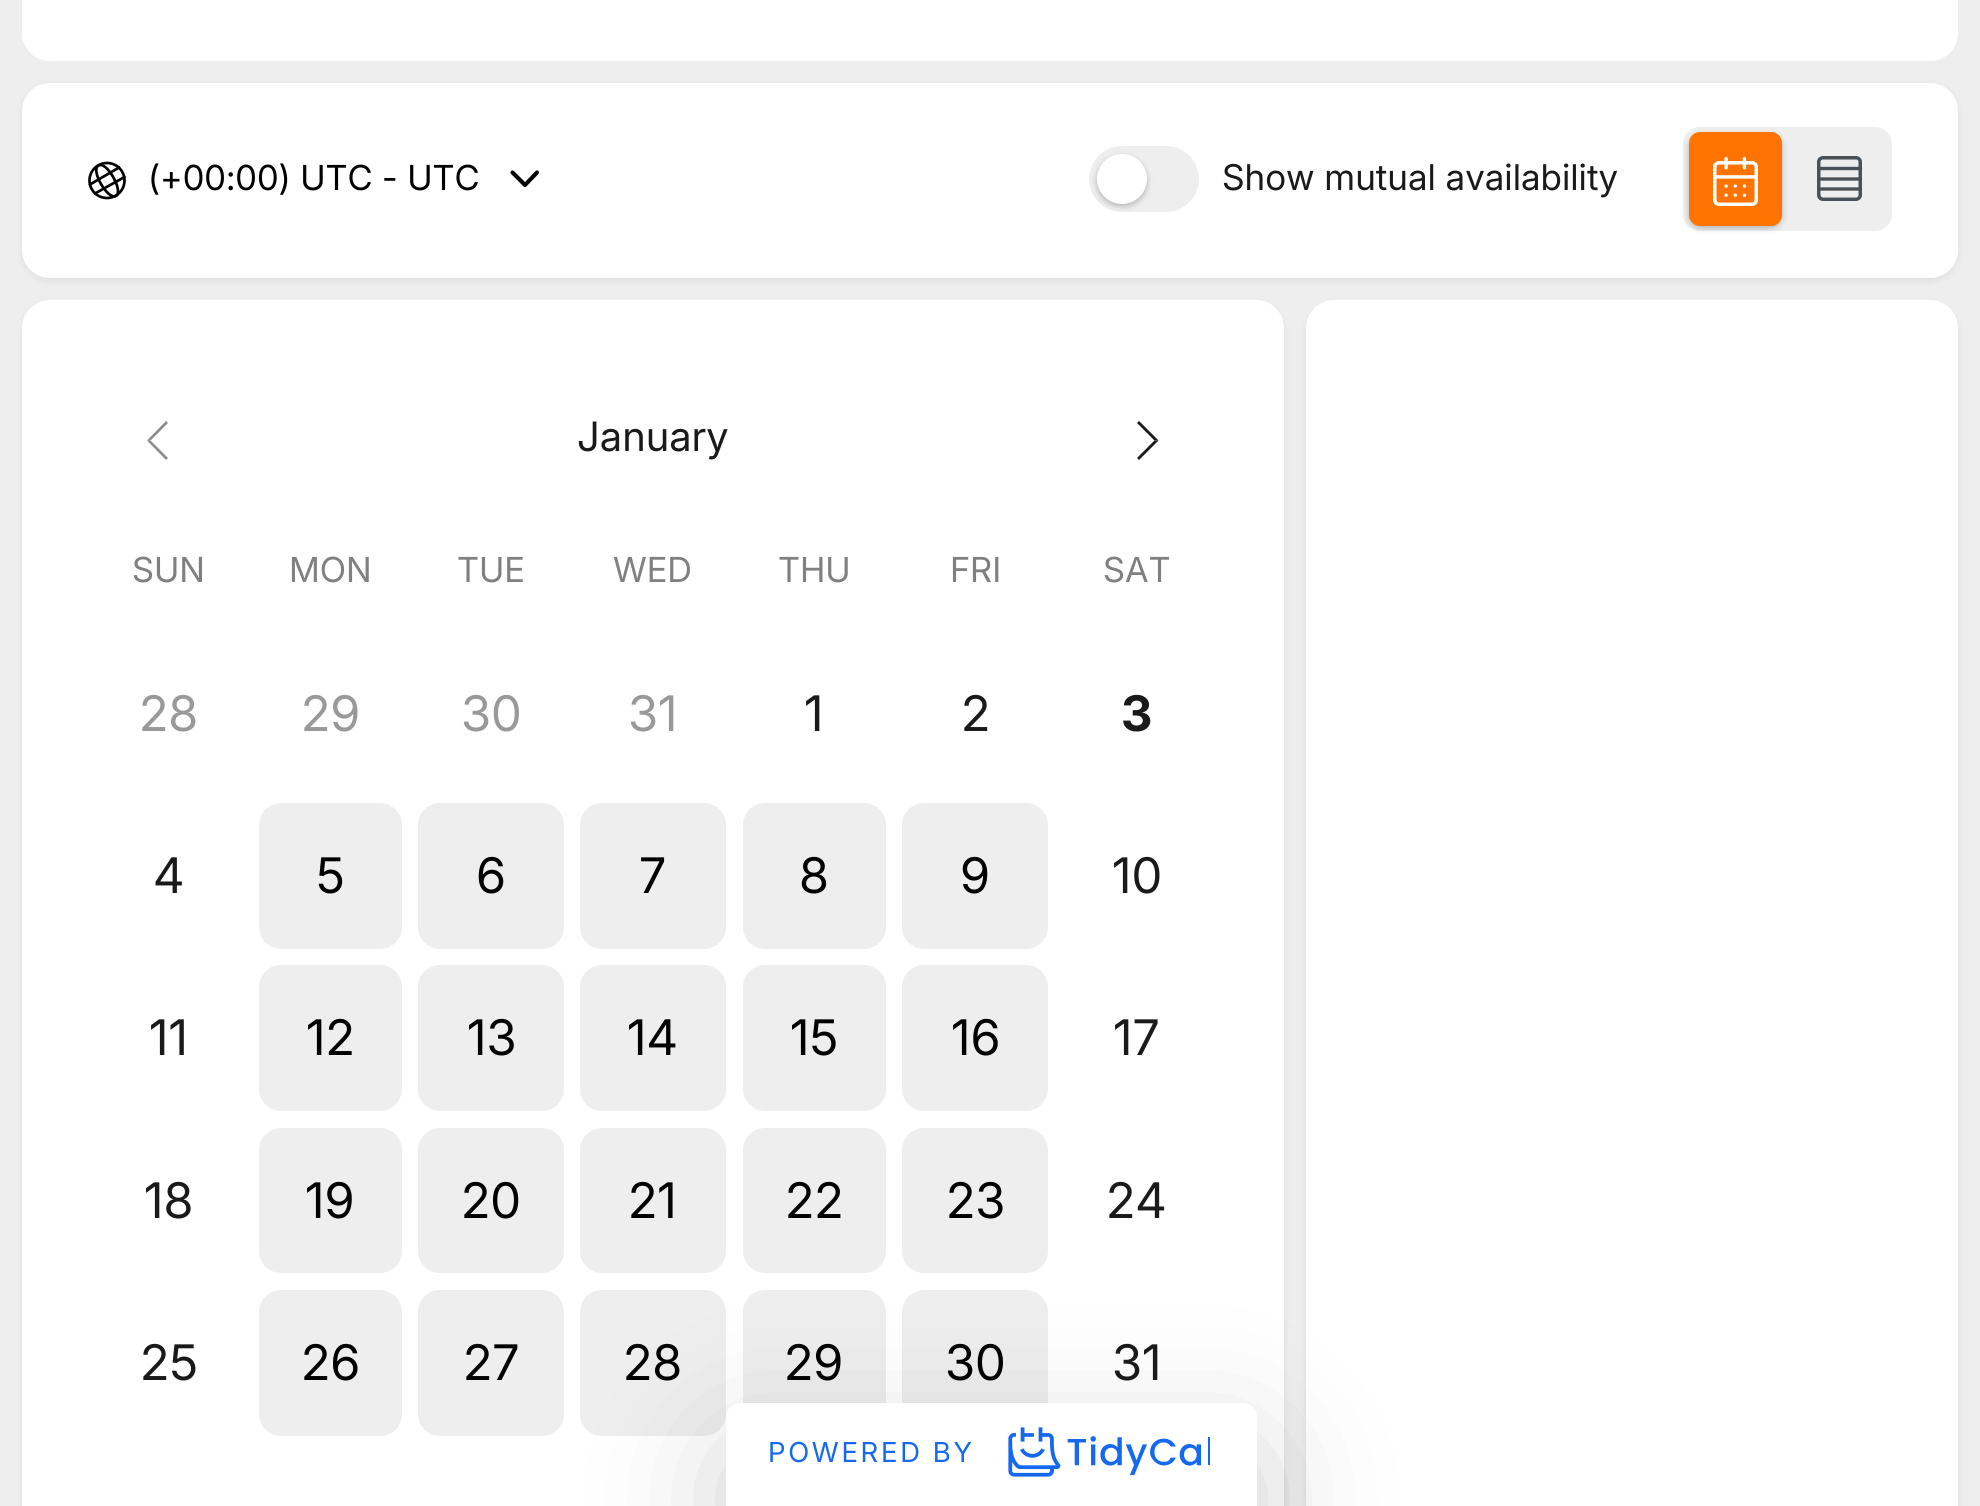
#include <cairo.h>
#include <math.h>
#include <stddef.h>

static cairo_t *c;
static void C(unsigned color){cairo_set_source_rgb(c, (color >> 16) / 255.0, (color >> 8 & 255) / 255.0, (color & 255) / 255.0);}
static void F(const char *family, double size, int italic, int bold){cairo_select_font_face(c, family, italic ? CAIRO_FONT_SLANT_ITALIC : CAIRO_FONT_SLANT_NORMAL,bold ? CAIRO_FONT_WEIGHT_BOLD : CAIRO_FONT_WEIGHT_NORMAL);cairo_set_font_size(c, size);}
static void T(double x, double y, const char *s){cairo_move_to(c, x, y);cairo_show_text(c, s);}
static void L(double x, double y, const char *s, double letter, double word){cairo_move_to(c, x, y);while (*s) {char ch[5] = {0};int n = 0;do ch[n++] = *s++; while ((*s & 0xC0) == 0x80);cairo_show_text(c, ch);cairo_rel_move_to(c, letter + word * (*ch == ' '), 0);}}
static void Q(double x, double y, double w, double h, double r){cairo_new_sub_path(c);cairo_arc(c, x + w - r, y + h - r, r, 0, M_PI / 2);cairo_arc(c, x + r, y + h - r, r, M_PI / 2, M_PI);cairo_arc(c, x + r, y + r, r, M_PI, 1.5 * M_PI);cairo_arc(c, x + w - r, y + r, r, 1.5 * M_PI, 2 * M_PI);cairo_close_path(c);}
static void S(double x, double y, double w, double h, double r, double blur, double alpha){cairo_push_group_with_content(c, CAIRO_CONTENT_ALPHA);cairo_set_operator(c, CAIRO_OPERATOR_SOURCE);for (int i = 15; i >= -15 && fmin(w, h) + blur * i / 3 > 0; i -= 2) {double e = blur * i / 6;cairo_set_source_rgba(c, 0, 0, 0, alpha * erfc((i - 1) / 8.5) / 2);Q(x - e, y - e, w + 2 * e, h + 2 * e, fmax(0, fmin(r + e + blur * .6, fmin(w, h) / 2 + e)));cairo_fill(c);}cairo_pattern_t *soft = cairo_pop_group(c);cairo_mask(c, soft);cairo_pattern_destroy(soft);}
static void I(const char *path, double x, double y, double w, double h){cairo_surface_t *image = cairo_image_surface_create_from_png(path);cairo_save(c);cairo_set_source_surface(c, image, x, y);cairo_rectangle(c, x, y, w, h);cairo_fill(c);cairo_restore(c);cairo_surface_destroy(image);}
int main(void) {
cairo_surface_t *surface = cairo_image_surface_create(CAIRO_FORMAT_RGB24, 1980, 1506);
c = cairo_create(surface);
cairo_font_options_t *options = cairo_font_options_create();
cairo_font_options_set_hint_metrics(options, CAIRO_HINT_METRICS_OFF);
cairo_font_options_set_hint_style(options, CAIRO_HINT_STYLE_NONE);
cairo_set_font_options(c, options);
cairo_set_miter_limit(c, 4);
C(0xeeeeef);
cairo_paint(c);
C(0xffffff);
Q(22,-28,1936,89,28);
cairo_fill(c);
C(0x000000);
S(22,85,1936,196,28,4,.07);
C(0xffffff);
Q(22,83,1936,195,28);
cairo_fill(c);
cairo_arc(c,107,180.5,17.5,0,2 * M_PI);
C(0x000000);
cairo_set_line_width(c,2.7);
cairo_stroke(c);
cairo_new_path(c);
cairo_move_to(c,98.5,165.5);
cairo_curve_to(c,106.5,160.5,124,191.5,116,196);
cairo_curve_to(c,108,200.5,90,170,98.5,165.5);
cairo_close_path(c);
cairo_move_to(c,90,184.5);
cairo_line_to(c,119,167.5);
cairo_move_to(c,124.5,177);
cairo_line_to(c,95,193.5);
cairo_set_line_cap(c,CAIRO_LINE_CAP_ROUND);
cairo_set_line_join(c,CAIRO_LINE_JOIN_ROUND);
cairo_stroke(c);
F("Inter",34.5,0,0);
T(148,190,"(+00:00) UTC - UTC");
cairo_new_path(c);
cairo_move_to(c,512.5,172.5);
cairo_line_to(c,525,185);
cairo_line_to(c,537,172.5);
cairo_set_line_width(c,4.1);
cairo_stroke(c);
C(0xeeeeef);
Q(1089,146,110,66,33);
cairo_fill(c);
C(0x000000);
S(1097,157,50,49,24.5,3,.25);
C(0xffffff);
cairo_arc(c,1122,179,25,0,2 * M_PI);
cairo_fill(c);
F("Inter",35.5,0,0);
C(0x1a1a1a);
T(1222,190,"Show mutual availability");
C(0xeeeeef);
Q(1683,127,209,104,17);
cairo_fill(c);
C(0x000000);
S(1689,135,93,93,11,3,.25);
C(0xff7300);
Q(1689,132,93,94,11);
cairo_fill(c);
I("1.png",1712,156,46,50);
Q(1818.75,157.75,41.5,41.5,4.25);
C(0x495057);
cairo_set_line_width(c,3.5);
cairo_set_line_cap(c,CAIRO_LINE_CAP_BUTT);
cairo_set_line_join(c,CAIRO_LINE_JOIN_MITER);
cairo_stroke(c);
cairo_new_path(c);
cairo_move_to(c,1860.5,168.5);
cairo_line_to(c,1819,168.5);
cairo_move_to(c,1860.5,179);
cairo_line_to(c,1819,179);
cairo_move_to(c,1860.5,189);
cairo_line_to(c,1819,189);
cairo_set_line_width(c,3.4);
cairo_set_line_cap(c,CAIRO_LINE_CAP_ROUND);
cairo_set_line_join(c,CAIRO_LINE_JOIN_ROUND);
cairo_stroke(c);
C(0x000000);
S(22,303,1262,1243,28,4,.07);
C(0xffffff);
Q(22,300,1262,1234,28);
cairo_fill(c);
C(0x8d8d8d);
cairo_new_path(c);
cairo_move_to(c,166,460);
cairo_line_to(c,147,440.5);
cairo_line_to(c,150.5,440.5);
cairo_line_to(c,168,458);
cairo_close_path(c);
cairo_fill(c);
cairo_set_source_rgba(c,0.502,0.502,0.502,0.9);
cairo_new_path(c);
cairo_move_to(c,147,440.5);
cairo_line_to(c,166,421);
cairo_line_to(c,168,423);
cairo_line_to(c,150.5,440.5);
cairo_close_path(c);
cairo_fill(c);
F("Inter",40.5,0,0);
C(0x1a1a1a);
T(577,451,"January");
cairo_new_path(c);
cairo_move_to(c,1139,421);
cairo_line_to(c,1158.5,440.5);
cairo_line_to(c,1154.5,440.5);
cairo_line_to(c,1137,423);
cairo_close_path(c);
cairo_fill(c);
cairo_new_path(c);
cairo_move_to(c,1158.5,440.5);
cairo_line_to(c,1139,460);
cairo_line_to(c,1137,458);
cairo_line_to(c,1154.5,440.5);
cairo_close_path(c);
cairo_fill(c);
F("Inter",34.5,0,0);
C(0x808080);
T(132,582,"SUN");
T(289,582,"MON");
T(457,582,"TUE");
T(613,582,"WED");
T(778,582,"THU");
T(950,582,"FRI");
T(1103,582,"SAT");
F("Inter",49,0,0);
C(0x999999);
T(139,731,"28");
T(301,731,"29");
T(461,731,"30");
T(628,731,"31");
C(0x1a1a1a);
T(804,731,"1");
T(961,731,"2");
F("Inter",49,0,1);
T(1121,731,"3");
F("Inter",49,0,0);
T(153,893,"4");
C(0xeeeeef);
Q(259,803,143,146,22);
cairo_fill(c);
C(0x000000);
T(316,893,"5");
C(0xeeeeef);
Q(418,803,146,146,22);
cairo_fill(c);
C(0x000000);
T(476,893,"6");
C(0xeeeeef);
Q(580,803,146,146,22);
cairo_fill(c);
C(0x000000);
T(639,893,"7");
C(0xeeeeef);
Q(743,803,143,146,22);
cairo_fill(c);
C(0x000000);
T(799,893,"8");
C(0xeeeeef);
Q(902,803,146,146,22);
cairo_fill(c);
C(0x000000);
T(960,893,"9");
C(0x1a1a1a);
T(1112,893,"10");
T(149,1055,"11");
C(0xeeeeef);
Q(259,965,143,146,22);
cairo_fill(c);
C(0x000000);
T(306,1055,"12");
C(0xeeeeef);
Q(418,965,146,146,22);
cairo_fill(c);
C(0x000000);
T(467,1055,"13");
C(0xeeeeef);
Q(580,965,146,146,22);
cairo_fill(c);
C(0x000000);
T(627,1055,"14");
C(0xeeeeef);
Q(743,965,143,146,22);
cairo_fill(c);
C(0x000000);
T(790,1055,"15");
C(0xeeeeef);
Q(902,965,146,146,22);
cairo_fill(c);
C(0x000000);
T(951,1055,"16");
C(0x1a1a1a);
T(1113,1055,"17");
T(144,1218,"18");
C(0xeeeeef);
Q(259,1128,143,145,22);
cairo_fill(c);
C(0x000000);
T(305,1218,"19");
C(0xeeeeef);
Q(418,1128,146,145,22);
cairo_fill(c);
C(0x000000);
T(461,1218,"20");
C(0xeeeeef);
Q(580,1128,146,145,22);
cairo_fill(c);
C(0x000000);
T(628,1218,"21");
C(0xeeeeef);
Q(743,1128,143,145,22);
cairo_fill(c);
C(0x000000);
T(785,1218,"22");
C(0xeeeeef);
Q(902,1128,146,145,22);
cairo_fill(c);
C(0x000000);
T(946,1218,"23");
C(0x1a1a1a);
T(1106,1218,"24");
T(140,1380,"25");
C(0xeeeeef);
Q(259,1290,143,146,22);
cairo_fill(c);
C(0x000000);
T(301,1380,"26");
C(0xeeeeef);
Q(418,1290,146,146,22);
cairo_fill(c);
C(0x000000);
T(463,1380,"27");
C(0xeeeeef);
Q(580,1290,146,146,22);
cairo_fill(c);
C(0x000000);
T(623,1380,"28");
C(0xeeeeef);
Q(743,1290,143,146,22);
cairo_fill(c);
C(0x000000);
T(784,1380,"29");
C(0xeeeeef);
Q(902,1290,146,146,22);
cairo_fill(c);
C(0x000000);
T(945,1380,"30");
C(0x1a1a1a);
T(1112,1380,"31");
C(0x000000);
S(1306,303,652,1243,28,4,.07);
C(0xffffff);
Q(1306,300,652,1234,28);
cairo_fill(c);
C(0x000000);
S(726,1447,531,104,14,66,.18);
C(0xffffff);
cairo_new_path(c);
cairo_move_to(c,740,1403);
cairo_line_to(c,1243,1403);
cairo_curve_to(c,1250.5,1403,1257,1409.5,1257,1417);
cairo_line_to(c,1257,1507);
cairo_line_to(c,726,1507);
cairo_line_to(c,726,1417);
cairo_curve_to(c,726,1409.5,732.5,1403,740,1403);
cairo_close_path(c);
cairo_fill(c);
F("Inter",27.5,0,0);
C(0x1569ef);
L(768,1462,"POWERED BY",2.75,0);
I("2.png",1008,1427,202,50);
cairo_surface_write_to_png(surface, "o.png");
cairo_font_options_destroy(options);
cairo_destroy(c);
cairo_surface_destroy(surface);
return 0;
}
